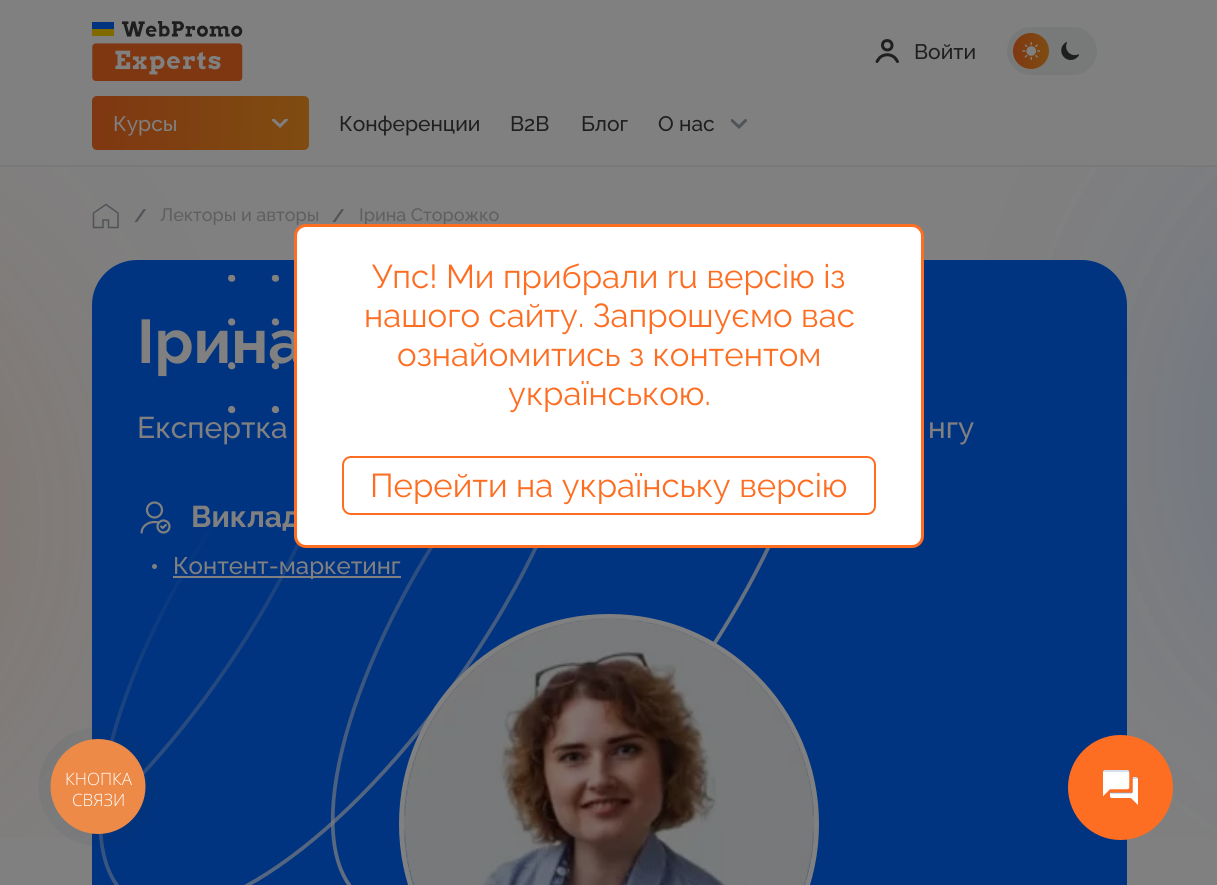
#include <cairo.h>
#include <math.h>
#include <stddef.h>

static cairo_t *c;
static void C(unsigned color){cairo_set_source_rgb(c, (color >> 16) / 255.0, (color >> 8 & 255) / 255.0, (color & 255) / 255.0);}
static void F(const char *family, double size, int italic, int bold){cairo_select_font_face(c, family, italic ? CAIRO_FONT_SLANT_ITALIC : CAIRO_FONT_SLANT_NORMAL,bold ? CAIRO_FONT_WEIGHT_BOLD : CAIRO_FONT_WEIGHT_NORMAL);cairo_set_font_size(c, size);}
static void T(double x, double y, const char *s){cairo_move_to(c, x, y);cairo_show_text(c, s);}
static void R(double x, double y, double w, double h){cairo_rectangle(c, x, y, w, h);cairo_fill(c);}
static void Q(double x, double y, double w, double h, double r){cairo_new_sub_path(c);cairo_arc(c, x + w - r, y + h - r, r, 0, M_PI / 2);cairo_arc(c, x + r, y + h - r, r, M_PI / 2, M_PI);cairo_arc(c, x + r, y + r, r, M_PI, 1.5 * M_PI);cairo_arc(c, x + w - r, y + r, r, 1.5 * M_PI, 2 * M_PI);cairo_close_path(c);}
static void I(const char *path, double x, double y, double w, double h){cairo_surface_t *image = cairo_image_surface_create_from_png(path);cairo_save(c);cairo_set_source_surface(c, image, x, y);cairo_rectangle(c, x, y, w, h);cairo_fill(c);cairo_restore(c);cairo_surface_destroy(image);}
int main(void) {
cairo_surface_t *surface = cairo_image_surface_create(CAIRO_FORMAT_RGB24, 1217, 885);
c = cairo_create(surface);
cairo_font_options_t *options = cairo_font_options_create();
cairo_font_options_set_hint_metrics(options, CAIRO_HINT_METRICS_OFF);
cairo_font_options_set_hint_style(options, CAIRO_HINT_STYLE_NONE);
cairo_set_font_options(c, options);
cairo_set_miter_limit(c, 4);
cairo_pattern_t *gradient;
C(0x808080);
cairo_paint(c);
cairo_new_path(c);
cairo_move_to(c,897.5,61.5);
cairo_line_to(c,895.5,58.5);
cairo_curve_to(c,891.5,53.5,883,53.5,879,58.5);
cairo_line_to(c,877,61.5);
cairo_move_to(c,892,45.5);
cairo_curve_to(c,892,51.5,882.5,51.5,882.5,45);
cairo_curve_to(c,882.5,39,892,39,892,45.5);
cairo_close_path(c);
C(0x1f1f1f);
cairo_set_line_width(c,3);
cairo_set_line_cap(c,CAIRO_LINE_CAP_ROUND);
cairo_set_line_join(c,CAIRO_LINE_JOIN_ROUND);
cairo_stroke(c);
F("Raleway Medium",21,0,0);
T(914,59,"Войти");
C(0x787a7a);
Q(1007,27,90,48,24);
cairo_fill(c);
gradient = cairo_pattern_create_linear(1012,50,1049,52);
cairo_pattern_add_color_stop_rgba(gradient,0,0.498,0.216,0.067,1);
cairo_pattern_add_color_stop_rgba(gradient,1,0.498,0.298,0.067,1);
cairo_set_source(c,gradient);
cairo_pattern_destroy(gradient);
cairo_arc(c,1031,51,18,0,2 * M_PI);
cairo_fill(c);
I("1.png",1022,42,18,18);
I("2.png",1061,42,18,18);
I("3.png",92,21,151,60);
gradient = cairo_pattern_create_linear(90,117,310,129);
cairo_pattern_add_color_stop_rgba(gradient,0,0.498,0.216,0.067,1);
cairo_pattern_add_color_stop_rgba(gradient,1,0.498,0.298,0.067,1);
cairo_set_source(c,gradient);
cairo_pattern_destroy(gradient);
Q(92,96,217,54,5);
cairo_fill(c);
C(0x808080);
T(113,131,"Курсы");
cairo_save(c);
cairo_rectangle(c,272,119,16,10);
cairo_clip(c);
cairo_new_path(c);
cairo_move_to(c,286.5,119.5);
cairo_line_to(c,280,126);
cairo_line_to(c,273,119.5);
cairo_set_line_join(c,CAIRO_LINE_JOIN_MITER);
cairo_stroke(c);
cairo_restore(c);
C(0x1f1f1f);
T(339,131,"Конференции");
T(510,131,"B2B");
T(581,131,"Блог");
T(658,131,"О нас");
cairo_save(c);
cairo_rectangle(c,731,119,16,10);
cairo_clip(c);
cairo_new_path(c);
cairo_move_to(c,745.5,120.5);
cairo_line_to(c,739,127);
cairo_line_to(c,732,120.5);
C(0x505458);
cairo_set_line_join(c,CAIRO_LINE_JOIN_MITER);
cairo_stroke(c);
cairo_restore(c);
C(0x787a7a);
R(0,165,1217,2);
I("4.png",0,167,1217,671);
cairo_new_path(c);
cairo_move_to(c,106,204.5);
cairo_line_to(c,93.5,213);
cairo_line_to(c,93.5,227.5);
cairo_line_to(c,103,227.5);
cairo_line_to(c,103,220);
cairo_line_to(c,108.5,220);
cairo_line_to(c,108.5,227.5);
cairo_line_to(c,118,227.5);
cairo_line_to(c,118,213);
cairo_close_path(c);
C(0x505458);
cairo_set_line_width(c,1.5);
cairo_set_line_cap(c,CAIRO_LINE_CAP_BUTT);
cairo_set_line_join(c,CAIRO_LINE_JOIN_MITER);
cairo_stroke(c);
F("Raleway",18,0,1);
T(134,222,"/");
F("Raleway Medium",18,0,0);
C(0x5f5f5f);
T(160,221,"Лекторы и авторы");
F("Raleway",18,0,1);
C(0x505458);
T(332,222,"/");
F("Raleway Medium",18,0,0);
C(0x5f5f5f);
T(359,221,"Ірина Сторожко");
C(0x003380);
Q(92,260,1035,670,45);
cairo_fill(c);
I("5.png",228,275,52,139);
F("Raleway",61.5,0,1);
C(0x808080);
T(137,363,"Ірина");
F("Raleway Medium",30,0,0);
T(137,438,"Експертка");
T(928,438,"нгу");
I("7.png",98,531,672,354);
I("6.png",140,501,31,33);
F("Raleway",30,0,1);
T(191,527,"Виклад");
cairo_new_path(c);
cairo_arc(c,154.5,566.5,2.5,0,2 * M_PI);
cairo_fill(c);
R(173,576,228,2);
F("Raleway Medium",24,0,0);
T(173,574,"Контент-маркетинг");
cairo_new_path(c);
cairo_arc(c,609,824,207.5,0,2 * M_PI);
cairo_set_line_width(c,5);
cairo_stroke(c);
I("8.png",403,618,412,267);
C(0xffffff);
Q(295.5,225.5,627,321,10.5);
cairo_fill_preserve(c);
C(0xfd6e22);
cairo_set_line_width(c,3);
cairo_stroke(c);
F("Raleway",33,0,0);
T(372,288,"Упс! Ми прибрали ru версію із");
T(364,327,"нашого сайту. Запрошуємо вас");
T(397,366,"ознайомитись з контентом");
T(508,405,"українською.");
Q(343,457,532,57,8);
cairo_set_line_width(c,2);
cairo_stroke(c);
T(370,497,"Перейти на українську версію");
cairo_set_source_rgba(c,0.165,0.251,0.365,0.06);
cairo_new_path(c);
cairo_arc(c,98,786.5,59.5,0,2 * M_PI);
cairo_fill(c);
C(0xed8a47);
cairo_arc(c,98,786.5,47.5,0,2 * M_PI);
cairo_fill(c);
F("Open Sans Light",17,0,0);
C(0xffffff);
T(65,785,"КНОПКА");
T(72,806,"СВЯЗИ");
C(0xfd6e22);
cairo_new_path(c);
cairo_arc(c,1120.5,787.5,52.5,0,2 * M_PI);
cairo_fill(c);
I("9.png",1103,770,35,35);
cairo_surface_write_to_png(surface, "o.png");
cairo_font_options_destroy(options);
cairo_destroy(c);
cairo_surface_destroy(surface);
return 0;
}
